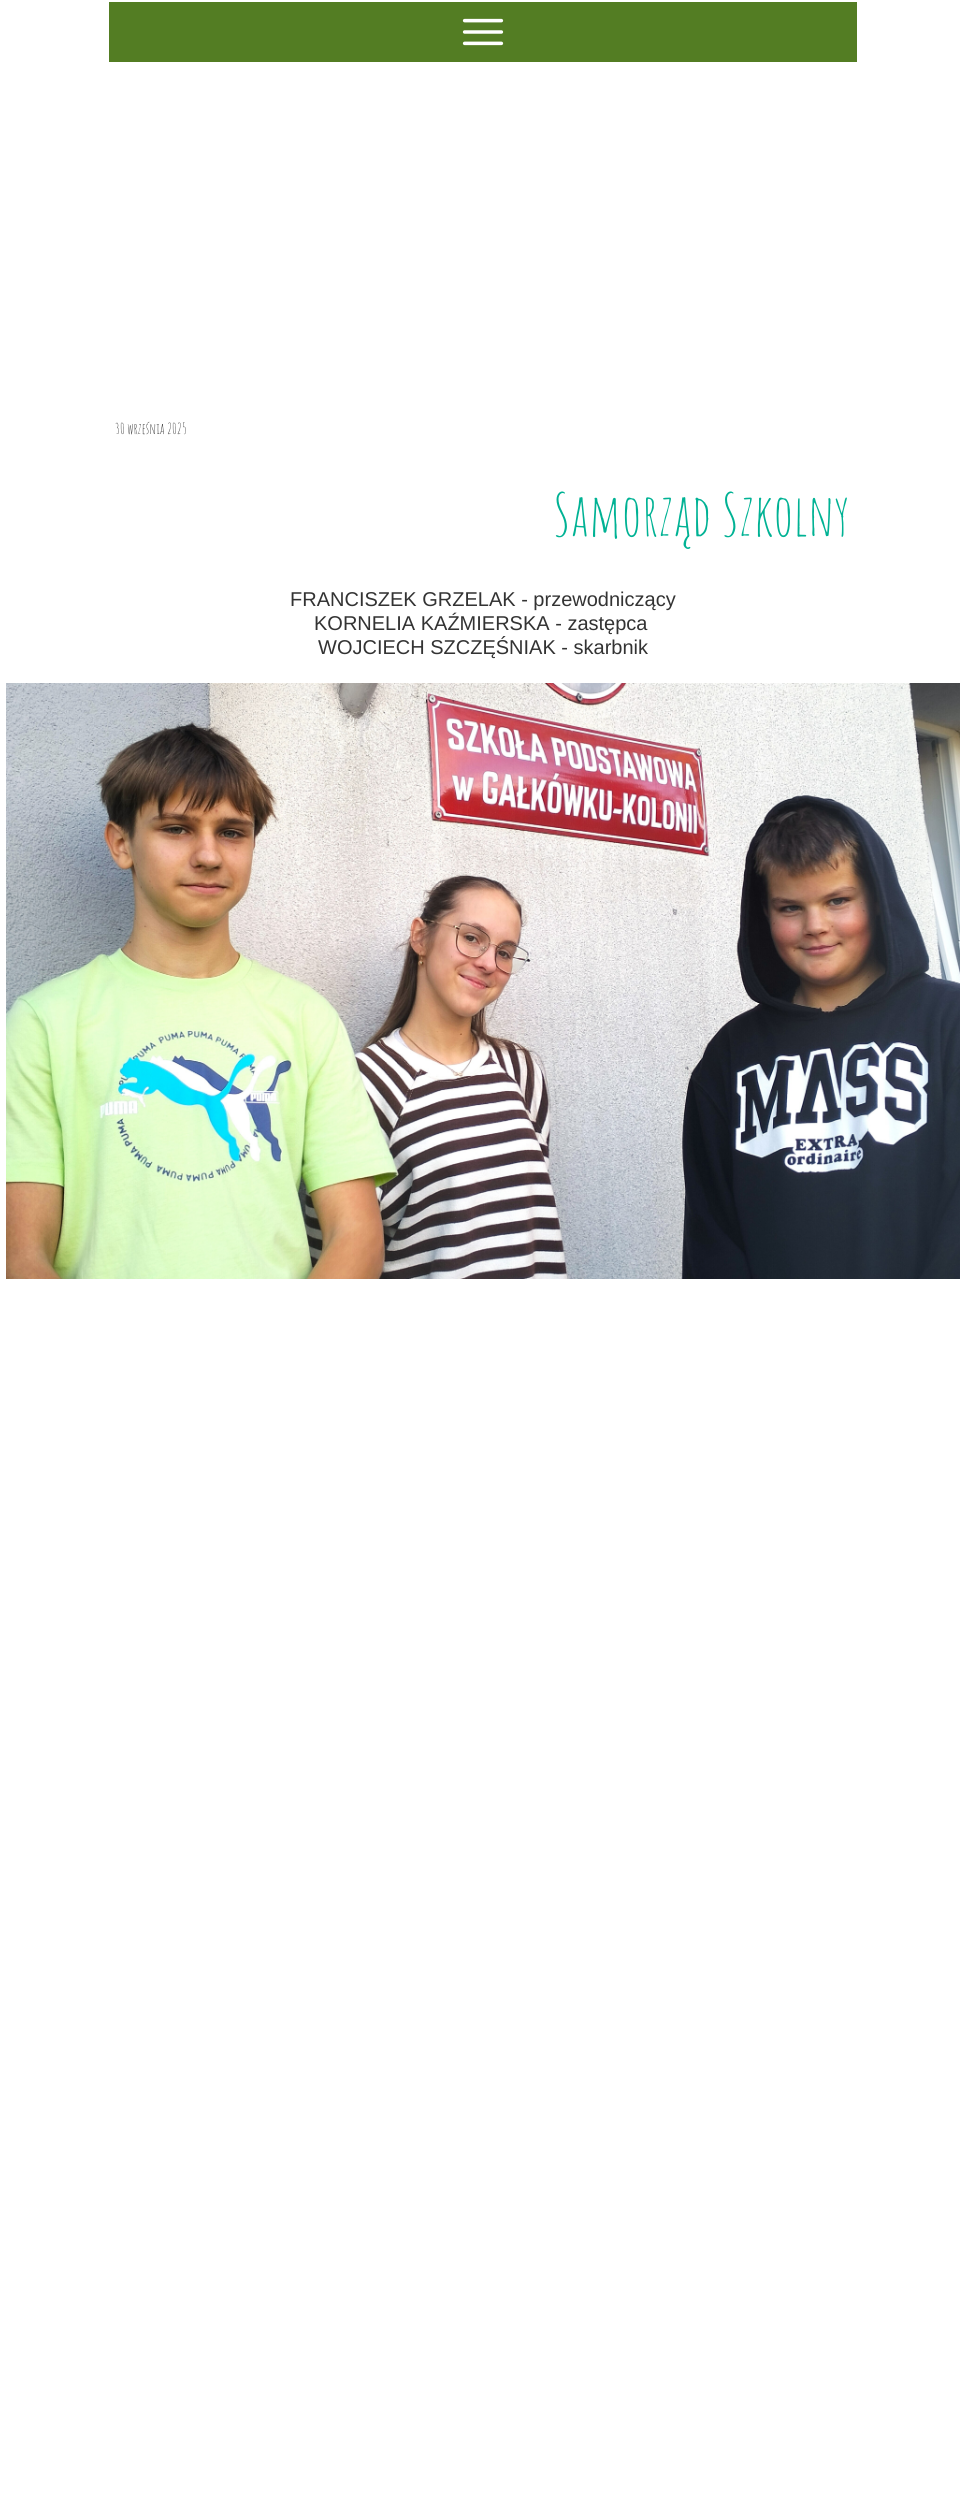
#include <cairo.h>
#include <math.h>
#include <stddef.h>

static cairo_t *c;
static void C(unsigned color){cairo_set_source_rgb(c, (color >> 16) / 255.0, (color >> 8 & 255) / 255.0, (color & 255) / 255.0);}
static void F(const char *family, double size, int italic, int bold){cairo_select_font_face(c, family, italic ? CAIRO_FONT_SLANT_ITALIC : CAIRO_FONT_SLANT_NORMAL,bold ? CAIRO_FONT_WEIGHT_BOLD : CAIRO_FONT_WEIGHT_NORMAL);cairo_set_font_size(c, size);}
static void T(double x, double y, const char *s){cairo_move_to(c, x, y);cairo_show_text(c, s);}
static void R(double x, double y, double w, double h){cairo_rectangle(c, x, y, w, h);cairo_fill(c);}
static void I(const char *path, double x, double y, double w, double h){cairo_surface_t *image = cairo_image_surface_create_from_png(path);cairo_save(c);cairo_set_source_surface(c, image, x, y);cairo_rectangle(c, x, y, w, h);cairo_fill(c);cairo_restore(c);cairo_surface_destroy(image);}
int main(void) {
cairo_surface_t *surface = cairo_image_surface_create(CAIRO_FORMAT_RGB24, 966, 2503);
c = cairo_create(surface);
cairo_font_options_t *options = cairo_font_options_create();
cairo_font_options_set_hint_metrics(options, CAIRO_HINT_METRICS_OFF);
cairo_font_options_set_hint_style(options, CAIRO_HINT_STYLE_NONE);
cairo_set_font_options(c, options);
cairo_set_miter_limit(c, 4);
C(0xffffff);
cairo_paint(c);
C(0x537d23);
R(109,2,748,60);
I("1.png",462,18,42,28);
F("Amatic SC",15,0,0);
C(0x333333);
T(115,434,"30 września 2025");
F("Amatic SC",58,0,0);
C(0x00b294);
T(553,536,"Samorząd Szkolny");
F("Liberation Sans",20,0,0);
C(0x333333);
T(290,606,"FRANCISZEK GRZELAK - przewodniczący");
T(314,630,"KORNELIA KAŹMIERSKA - zastępca");
T(318,654,"WOJCIECH SZCZĘŚNIAK - skarbnik");
I("2.png",6,683,954,596);
cairo_surface_write_to_png(surface, "o.png");
cairo_font_options_destroy(options);
cairo_destroy(c);
cairo_surface_destroy(surface);
return 0;
}
